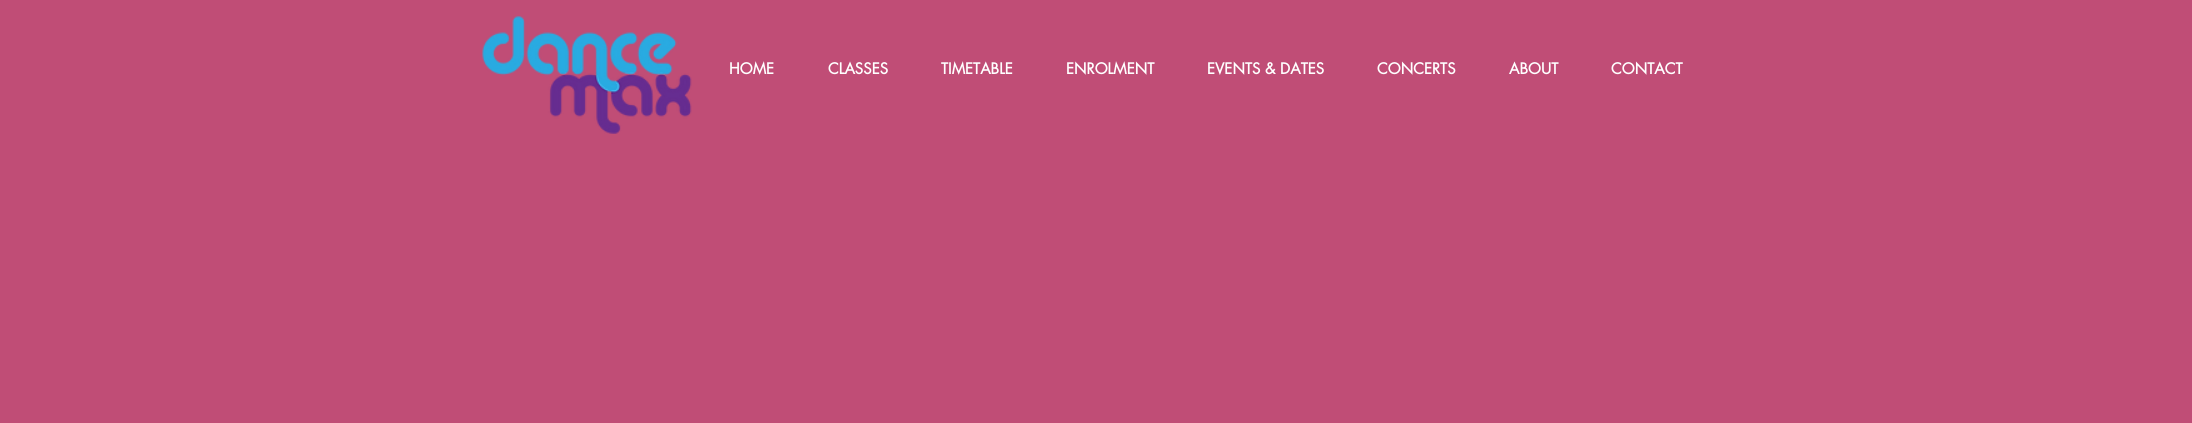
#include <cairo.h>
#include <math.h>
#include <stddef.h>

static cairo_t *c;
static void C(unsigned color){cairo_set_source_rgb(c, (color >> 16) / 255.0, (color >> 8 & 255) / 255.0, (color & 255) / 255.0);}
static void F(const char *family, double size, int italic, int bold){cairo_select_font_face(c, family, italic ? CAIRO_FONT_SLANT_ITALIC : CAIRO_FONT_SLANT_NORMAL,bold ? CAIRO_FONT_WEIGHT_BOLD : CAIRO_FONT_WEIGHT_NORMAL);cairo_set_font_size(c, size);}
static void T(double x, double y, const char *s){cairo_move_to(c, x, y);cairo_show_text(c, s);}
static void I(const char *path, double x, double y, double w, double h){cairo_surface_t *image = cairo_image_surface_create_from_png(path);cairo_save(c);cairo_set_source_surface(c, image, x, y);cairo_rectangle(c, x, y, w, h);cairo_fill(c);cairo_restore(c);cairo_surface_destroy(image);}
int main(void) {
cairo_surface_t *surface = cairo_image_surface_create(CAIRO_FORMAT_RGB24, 2192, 423);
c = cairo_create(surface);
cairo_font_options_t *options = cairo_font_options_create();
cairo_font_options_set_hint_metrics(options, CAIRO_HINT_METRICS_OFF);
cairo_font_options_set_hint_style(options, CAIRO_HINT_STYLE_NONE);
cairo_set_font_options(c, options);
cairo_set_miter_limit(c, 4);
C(0xc04d76);
cairo_paint(c);
I("1.png",482,16,210,118);
F("futura",15,0,1);
C(0xffffff);
T(729,74,"HOME");
T(828,74,"CLASSES");
T(941,74,"TIMETABLE");
T(1066,74,"ENROLMENT");
T(1207,74,"EVENTS & DATES");
T(1377,74,"CONCERTS");
T(1509,74,"ABOUT");
T(1611,74,"CONTACT");
cairo_surface_write_to_png(surface, "o.png");
cairo_font_options_destroy(options);
cairo_destroy(c);
cairo_surface_destroy(surface);
return 0;
}
